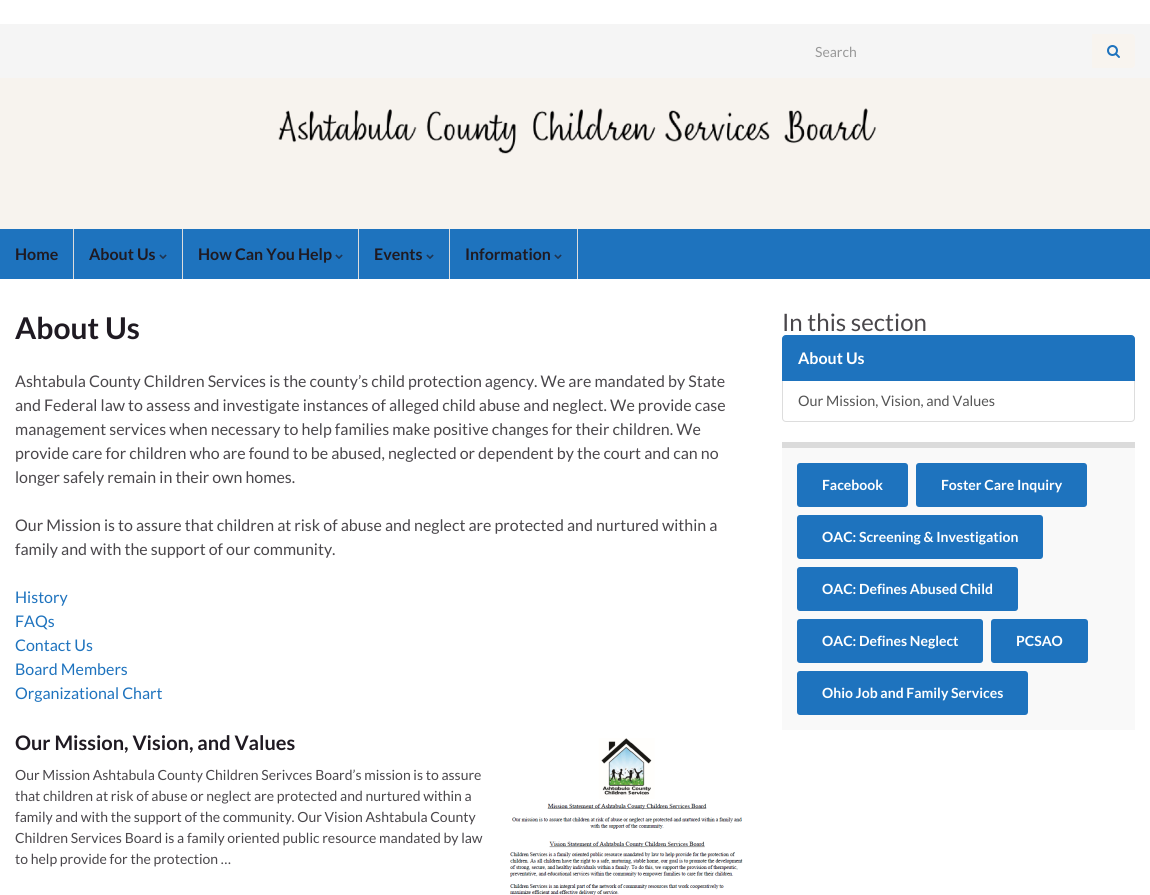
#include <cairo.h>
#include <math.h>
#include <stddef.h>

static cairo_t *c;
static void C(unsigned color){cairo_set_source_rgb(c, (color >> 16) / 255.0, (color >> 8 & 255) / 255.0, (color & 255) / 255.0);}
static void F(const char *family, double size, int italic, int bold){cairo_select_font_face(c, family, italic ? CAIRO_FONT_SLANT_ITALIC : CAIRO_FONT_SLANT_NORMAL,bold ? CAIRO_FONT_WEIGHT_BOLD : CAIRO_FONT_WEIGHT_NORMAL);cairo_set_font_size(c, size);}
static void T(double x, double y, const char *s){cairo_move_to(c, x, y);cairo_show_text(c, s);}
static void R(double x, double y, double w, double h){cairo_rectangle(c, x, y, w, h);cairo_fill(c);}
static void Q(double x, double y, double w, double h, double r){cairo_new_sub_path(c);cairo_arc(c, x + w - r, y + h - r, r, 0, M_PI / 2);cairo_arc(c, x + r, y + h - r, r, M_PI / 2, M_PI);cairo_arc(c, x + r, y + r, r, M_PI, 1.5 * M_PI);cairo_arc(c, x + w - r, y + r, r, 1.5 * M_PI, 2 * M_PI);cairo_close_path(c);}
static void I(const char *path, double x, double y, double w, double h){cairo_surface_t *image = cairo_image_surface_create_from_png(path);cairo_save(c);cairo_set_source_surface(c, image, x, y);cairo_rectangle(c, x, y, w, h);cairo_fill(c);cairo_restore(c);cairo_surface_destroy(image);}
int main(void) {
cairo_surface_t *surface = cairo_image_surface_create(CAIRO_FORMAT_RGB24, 1150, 895);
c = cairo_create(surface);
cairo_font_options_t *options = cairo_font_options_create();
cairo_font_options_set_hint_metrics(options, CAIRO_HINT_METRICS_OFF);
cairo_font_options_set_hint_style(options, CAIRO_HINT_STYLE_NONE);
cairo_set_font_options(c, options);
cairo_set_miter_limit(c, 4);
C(0xffffff);
cairo_paint(c);
C(0xf5f5f5);
R(0,24,1150,54);
F("Lato",14,0,0);
C(0x999999);
T(815,57,"Search");
C(0xf8f4ef);
cairo_new_path(c);
cairo_move_to(c,1092,34);
cairo_line_to(c,1132,34);
cairo_curve_to(c,1133.5,34,1135,35.5,1135,37);
cairo_line_to(c,1135,65);
cairo_curve_to(c,1135,66.5,1133.5,68,1132,68);
cairo_line_to(c,1092,68);
cairo_close_path(c);
cairo_fill(c);
I("1.png",1107,45,13,13);
I("2.png",0,78,1150,151);
C(0x1e73be);
R(0,229,1150,50);
C(0xdddddd);
R(73,229,1,50);
F("Lato",16,0,1);
C(0x1f1a22);
T(15,260,"Home");
C(0xdddddd);
R(182,229,1,50);
C(0x1f1a22);
T(89,260,"About Us");
I("3.png",159,254,8,5);
C(0xdddddd);
R(358,229,1,50);
C(0x1f1a22);
T(198,260,"How Can You Help");
I("3.png",335,254,8,5);
C(0xdddddd);
R(449,229,1,50);
C(0x1f1a22);
T(374,260,"Events");
I("3.png",426,254,8,5);
C(0xdddddd);
R(577,229,1,50);
C(0x1f1a22);
T(465,260,"Information");
I("3.png",554,254,8,5);
F("Lato",30,0,1);
T(15,339,"About Us");
F("Lato",16,0,0);
C(0x4a474b);
T(15,387,"Ashtabula County Children Services is the county’s child protection agency. We are mandated by State");
T(15,411,"and Federal law to assess and investigate instances of alleged child abuse and neglect. We provide case");
T(15,435,"management services when necessary to help families make positive changes for their children. We");
T(15,459,"provide care for children who are found to be abused, neglected or dependent by the court and can no");
T(15,483,"longer safely remain in their own homes.");
T(15,531,"Our Mission is to assure that children at risk of abuse and neglect are protected and nurtured within a");
T(15,555,"family and with the support of our community.");
C(0x1e73be);
T(15,603,"History");
T(15,627,"FAQs");
T(15,651,"Contact Us");
T(15,675,"Board Members");
T(15,699,"Organizational Chart");
F("Lato",20,0,1);
C(0x1f1a22);
T(15,750,"Our Mission, Vision, and Values");
I("4.png",510,738,233,157);
F("Lato",14,0,0);
C(0x4a474b);
T(15,780,"Our Mission Ashtabula County Children Serivces Board’s mission is to assure");
T(15,801,"that children at risk of abuse or neglect are protected and nurtured within a");
T(15,822,"family and with the support of the community. Our Vision Ashtabula County");
T(15,843,"Children Services Board is a family oriented public resource mandated by law");
T(15,864,"to help provide for the protection …");
F("Lato",24,0,0);
T(782,331,"In this section");
cairo_new_path(c);
cairo_move_to(c,782.5,380.5);
cairo_line_to(c,1134.5,380.5);
cairo_line_to(c,1134.5,418);
cairo_curve_to(c,1134.5,420,1133,421.5,1131,421.5);
cairo_line_to(c,786,421.5);
cairo_curve_to(c,784,421.5,782.5,420,782.5,418);
cairo_close_path(c);
C(0xdddddd);
cairo_set_line_width(c,1);
cairo_stroke(c);
C(0x1e73be);
cairo_new_path(c);
cairo_move_to(c,786,335.5);
cairo_line_to(c,1131,335.5);
cairo_curve_to(c,1133,335.5,1134.5,337,1134.5,339);
cairo_line_to(c,1134.5,380.5);
cairo_line_to(c,782.5,380.5);
cairo_line_to(c,782.5,339);
cairo_curve_to(c,782.5,337,784,335.5,786,335.5);
cairo_close_path(c);
cairo_fill_preserve(c);
cairo_stroke(c);
F("Lato",16,0,1);
C(0xffffff);
T(798,364,"About Us");
F("Lato",14.4,0,0);
C(0x555555);
T(798,406,"Our Mission, Vision, and Values");
C(0xf9f9f9);
R(782,448,353,282);
C(0xdbdbdb);
R(782,442,353,6);
C(0x1e73be);
Q(797,463,111,44,3);
cairo_fill(c);
F("Lato",14,0,1);
C(0xffffff);
T(822,490,"Facebook");
C(0x1e73be);
Q(916,463,171,44,3);
cairo_fill(c);
C(0xffffff);
T(941,490,"Foster Care Inquiry");
C(0x1e73be);
Q(797,515,246,44,3);
cairo_fill(c);
C(0xffffff);
T(822,542,"OAC: Screening & Investigation");
C(0x1e73be);
Q(797,567,221,44,3);
cairo_fill(c);
C(0xffffff);
T(822,594,"OAC: Defines Abused Child");
C(0x1e73be);
Q(797,619,186,44,3);
cairo_fill(c);
C(0xffffff);
T(822,646,"OAC: Defines Neglect");
C(0x1e73be);
Q(991,619,97,44,3);
cairo_fill(c);
C(0xffffff);
T(1016,646,"PCSAO");
C(0x1e73be);
Q(797,671,231,44,3);
cairo_fill(c);
C(0xffffff);
T(822,698,"Ohio Job and Family Services");
cairo_surface_write_to_png(surface, "o.png");
cairo_font_options_destroy(options);
cairo_destroy(c);
cairo_surface_destroy(surface);
return 0;
}
